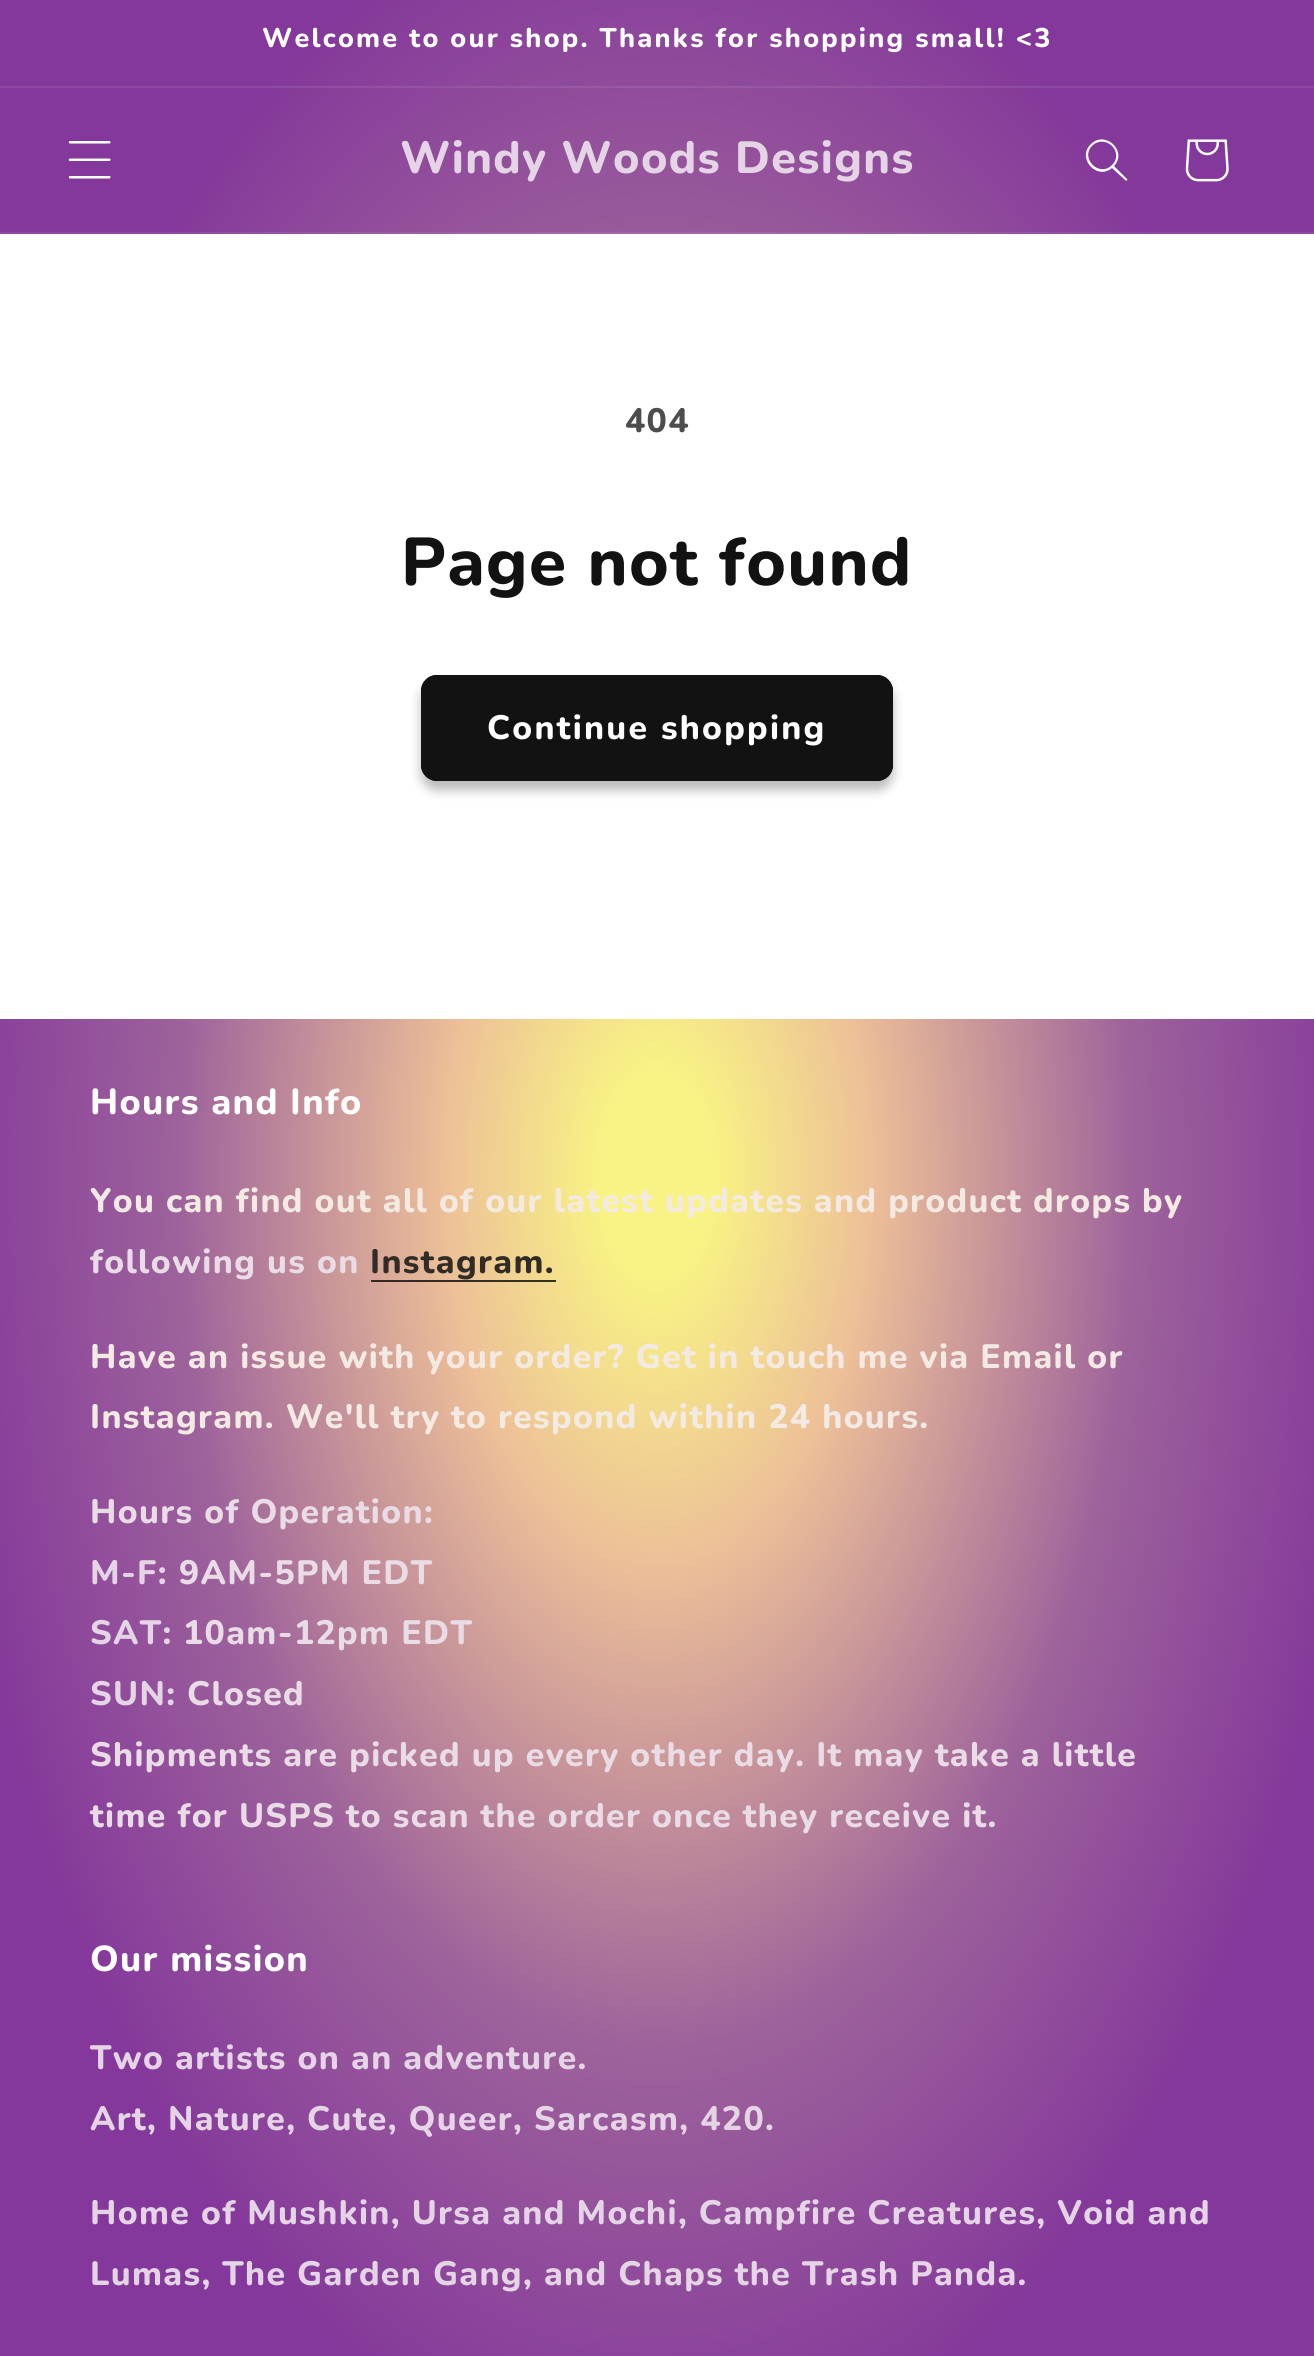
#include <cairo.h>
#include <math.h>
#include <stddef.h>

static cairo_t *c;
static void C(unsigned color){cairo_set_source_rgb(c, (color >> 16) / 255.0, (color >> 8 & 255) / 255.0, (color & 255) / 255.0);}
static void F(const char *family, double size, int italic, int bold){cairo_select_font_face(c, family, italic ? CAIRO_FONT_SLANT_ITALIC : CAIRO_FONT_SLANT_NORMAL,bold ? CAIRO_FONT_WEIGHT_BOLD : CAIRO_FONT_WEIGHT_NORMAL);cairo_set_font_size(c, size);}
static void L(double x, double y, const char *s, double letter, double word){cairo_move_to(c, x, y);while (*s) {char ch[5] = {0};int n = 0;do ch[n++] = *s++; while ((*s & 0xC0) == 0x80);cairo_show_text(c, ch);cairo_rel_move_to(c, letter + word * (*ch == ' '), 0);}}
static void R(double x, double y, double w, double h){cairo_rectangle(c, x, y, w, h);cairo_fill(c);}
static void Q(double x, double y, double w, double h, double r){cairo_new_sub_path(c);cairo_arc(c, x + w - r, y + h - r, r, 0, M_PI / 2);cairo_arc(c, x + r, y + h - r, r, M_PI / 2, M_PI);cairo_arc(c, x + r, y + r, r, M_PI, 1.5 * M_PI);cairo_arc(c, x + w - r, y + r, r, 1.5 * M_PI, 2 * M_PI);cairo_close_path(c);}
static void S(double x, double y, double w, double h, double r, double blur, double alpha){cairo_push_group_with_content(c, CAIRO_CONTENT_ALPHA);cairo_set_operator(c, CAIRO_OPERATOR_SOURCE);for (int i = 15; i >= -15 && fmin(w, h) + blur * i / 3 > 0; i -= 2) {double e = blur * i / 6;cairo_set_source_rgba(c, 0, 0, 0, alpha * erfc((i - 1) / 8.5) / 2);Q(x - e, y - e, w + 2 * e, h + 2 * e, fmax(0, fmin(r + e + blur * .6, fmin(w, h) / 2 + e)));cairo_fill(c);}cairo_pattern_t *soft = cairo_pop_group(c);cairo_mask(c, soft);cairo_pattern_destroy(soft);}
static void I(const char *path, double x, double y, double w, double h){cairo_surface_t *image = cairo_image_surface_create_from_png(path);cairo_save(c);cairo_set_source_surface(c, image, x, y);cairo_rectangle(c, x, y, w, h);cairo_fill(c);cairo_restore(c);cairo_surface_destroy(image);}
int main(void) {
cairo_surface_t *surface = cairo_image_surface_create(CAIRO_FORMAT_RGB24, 1314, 2356);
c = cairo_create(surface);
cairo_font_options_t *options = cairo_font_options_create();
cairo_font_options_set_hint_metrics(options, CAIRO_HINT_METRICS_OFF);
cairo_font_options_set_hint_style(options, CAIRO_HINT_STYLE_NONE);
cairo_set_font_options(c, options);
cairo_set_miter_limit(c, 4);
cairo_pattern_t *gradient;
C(0xffffff);
cairo_paint(c);
gradient = cairo_pattern_create_radial(0,0,0,0,0,1);
cairo_pattern_set_matrix(gradient, &(cairo_matrix_t){1.0 / 929, 0, 0, 1.0 / 1667, -1.0 * 657 / 929, -1.0 * 1179 / 1667});
cairo_pattern_add_color_stop_rgba(gradient,.06,0.973,0.953,0.518,1);
cairo_pattern_add_color_stop_rgba(gradient,.23,0.929,0.753,0.596,1);
cairo_pattern_add_color_stop_rgba(gradient,.52,0.616,0.384,0.608,1);
cairo_pattern_add_color_stop_rgba(gradient,.78,0.518,0.22,0.608,1);
cairo_set_source(c,gradient);
cairo_pattern_destroy(gradient);
R(0,0,1314,86);
gradient = cairo_pattern_create_radial(0,0,0,0,0,1);
cairo_pattern_set_matrix(gradient, &(cairo_matrix_t){1.0 / 929, 0, 0, 1.0 / 1667, -1.0 * 657 / 929, -1.0 * 1179 / 1667});
cairo_pattern_add_color_stop_rgba(gradient,.06,0.976,0.957,0.557,1);
cairo_pattern_add_color_stop_rgba(gradient,.23,0.933,0.773,0.627,1);
cairo_pattern_add_color_stop_rgba(gradient,.52,0.647,0.435,0.639,1);
cairo_pattern_add_color_stop_rgba(gradient,.78,0.557,0.282,0.639,1);
cairo_set_source(c,gradient);
cairo_pattern_destroy(gradient);
R(0,86,1314,2);
F("Nunito ExtraBold",27,0,0);
C(0xffffff);
L(262,47,"Welcome to our shop. Thanks for shopping small! <3",2.25,0);
gradient = cairo_pattern_create_radial(0,0,0,0,0,1);
cairo_pattern_set_matrix(gradient, &(cairo_matrix_t){1.0 / 929, 0, 0, 1.0 / 1667, -1.0 * 657 / 929, -1.0 * 1179 / 1667});
cairo_pattern_add_color_stop_rgba(gradient,.06,0.973,0.953,0.518,1);
cairo_pattern_add_color_stop_rgba(gradient,.23,0.929,0.753,0.596,1);
cairo_pattern_add_color_stop_rgba(gradient,.52,0.616,0.384,0.608,1);
cairo_pattern_add_color_stop_rgba(gradient,.78,0.518,0.22,0.608,1);
cairo_set_source(c,gradient);
cairo_pattern_destroy(gradient);
R(0,88,1314,144);
gradient = cairo_pattern_create_radial(0,0,0,0,0,1);
cairo_pattern_set_matrix(gradient, &(cairo_matrix_t){1.0 / 929, 0, 0, 1.0 / 1667, -1.0 * 657 / 929, -1.0 * 1179 / 1667});
cairo_pattern_add_color_stop_rgba(gradient,.06,0.976,0.957,0.557,1);
cairo_pattern_add_color_stop_rgba(gradient,.23,0.933,0.773,0.627,1);
cairo_pattern_add_color_stop_rgba(gradient,.52,0.647,0.435,0.639,1);
cairo_pattern_add_color_stop_rgba(gradient,.78,0.557,0.282,0.639,1);
cairo_set_source(c,gradient);
cairo_pattern_destroy(gradient);
R(0,232,1314,2);
I("1.png",68,141,43,38);
F("Nunito ExtraBold",45,0,0);
C(0xe4d4e6);
L(400,173,"Windy Woods Designs",1.35,0);
C(0xffffff);
cairo_set_fill_rule(c,CAIRO_FILL_RULE_EVEN_ODD);
cairo_new_path(c);
cairo_move_to(c,1112,165);
cairo_curve_to(c,1099,178,1080,158,1092,146);
cairo_curve_to(c,1105,133,1125,152,1112,165);
cairo_move_to(c,1112,168);
cairo_curve_to(c,1097,181,1076,158,1091,144);
cairo_curve_to(c,1105,130,1128,151,1114,166);
cairo_line_to(c,1127,179);
cairo_curve_to(c,1128,181,1126,181,1125,180);
cairo_close_path(c);
cairo_fill(c);
I("2.png",1185,139,44,43);
F("Nunito ExtraBold",33.75,0,0);
C(0x4d4d4d);
L(625,432,"404",1.35,0);
F("Nunito ExtraBold",67.5,0,0);
C(0x121212);
L(401,585,"Page not found",1.35,0);
C(0x121212);
S(421,684,472,106,16,5.5,.3);
C(0x121212);
Q(421,675,472,106,16);
cairo_fill(c);
Q(422,676,470,104,15);
cairo_stroke(c);
F("Nunito ExtraBold",33.75,0,0);
C(0xffffff);
L(487,739,"Continue shopping",2.25,0);
gradient = cairo_pattern_create_radial(0,0,0,0,0,1);
cairo_pattern_set_matrix(gradient, &(cairo_matrix_t){1.0 / 929, 0, 0, 1.0 / 1667, -1.0 * 657 / 929, -1.0 * 1179 / 1667});
cairo_pattern_add_color_stop_rgba(gradient,.06,0.973,0.953,0.518,1);
cairo_pattern_add_color_stop_rgba(gradient,.23,0.929,0.753,0.596,1);
cairo_pattern_add_color_stop_rgba(gradient,.52,0.616,0.384,0.608,1);
cairo_pattern_add_color_stop_rgba(gradient,.78,0.518,0.22,0.608,1);
cairo_set_source(c,gradient);
cairo_pattern_destroy(gradient);
R(0,1019,1314,1337);
gradient = cairo_pattern_create_radial(0,0,0,0,0,1);
cairo_pattern_set_matrix(gradient, &(cairo_matrix_t){1.0 / 929, 0, 0, 1.0 / 1667, -1.0 * 657 / 929, -1.0 * 1179 / 1667});
cairo_pattern_add_color_stop_rgba(gradient,.06,0.208,0.204,0.137,1);
cairo_pattern_add_color_stop_rgba(gradient,.23,0.2,0.173,0.149,1);
cairo_pattern_add_color_stop_rgba(gradient,.52,0.153,0.118,0.153,1);
cairo_pattern_add_color_stop_rgba(gradient,.78,0.137,0.094,0.153,1);
cairo_set_source(c,gradient);
cairo_pattern_destroy(gradient);
R(371,1280,185,2);
F("Nunito ExtraBold",36,0,0);
C(0xffffff);
L(90,1114,"Hours and Info",1.35,0);
F("Nunito ExtraBold",33.75,0,0);
C(0xf4eae4);
L(90,1212,"You can find out all of our latest updates and product drops by",1.35,0);
C(0xeadce6);
L(90,1273,"following us on",1.35,0);
C(0x322c26);
L(370,1273,"Instagram.",1.35,0);
C(0xf4eae4);
L(90,1368,"Have an issue with your order? Get in touch me via Email or",1.35,0);
L(90,1428,"Instagram. We'll try to respond within 24 hours.",1.35,0);
C(0xeadce6);
L(90,1523,"Hours of Operation:",1.35,0);
C(0xe4d4e6);
L(90,1584,"M-F:",1.35,0);
C(0xeadce6);
L(179,1584,"9AM-5PM EDT",1.35,0);
C(0xe4d4e6);
L(90,1644,"SAT:",1.35,0);
C(0xeadce6);
L(183,1644,"10am-12pm EDT",1.35,0);
C(0xe4d4e6);
L(90,1705,"SUN:",1.35,0);
C(0xeadce6);
L(187,1705,"Closed",1.35,0);
L(90,1766,"Shipments are picked up every other day. It may take a little",1.35,0);
L(90,1827,"time for USPS to scan the order once they receive it.",1.35,0);
F("Nunito ExtraBold",36,0,0);
C(0xffffff);
L(90,1971,"Our mission",1.35,0);
F("Nunito ExtraBold",33.75,0,0);
C(0xe4d4e6);
L(90,2069,"Two artists on an adventure.",1.35,0);
L(90,2130,"Art, Nature, Cute, Queer, Sarcasm, 420.",1.35,0);
L(90,2224,"Home of Mushkin, Ursa and Mochi, Campfire Creatures, Void and",1.35,0);
L(90,2285,"Lumas, The Garden Gang, and Chaps the Trash Panda.",1.35,0);
cairo_surface_write_to_png(surface, "o.png");
cairo_font_options_destroy(options);
cairo_destroy(c);
cairo_surface_destroy(surface);
return 0;
}
